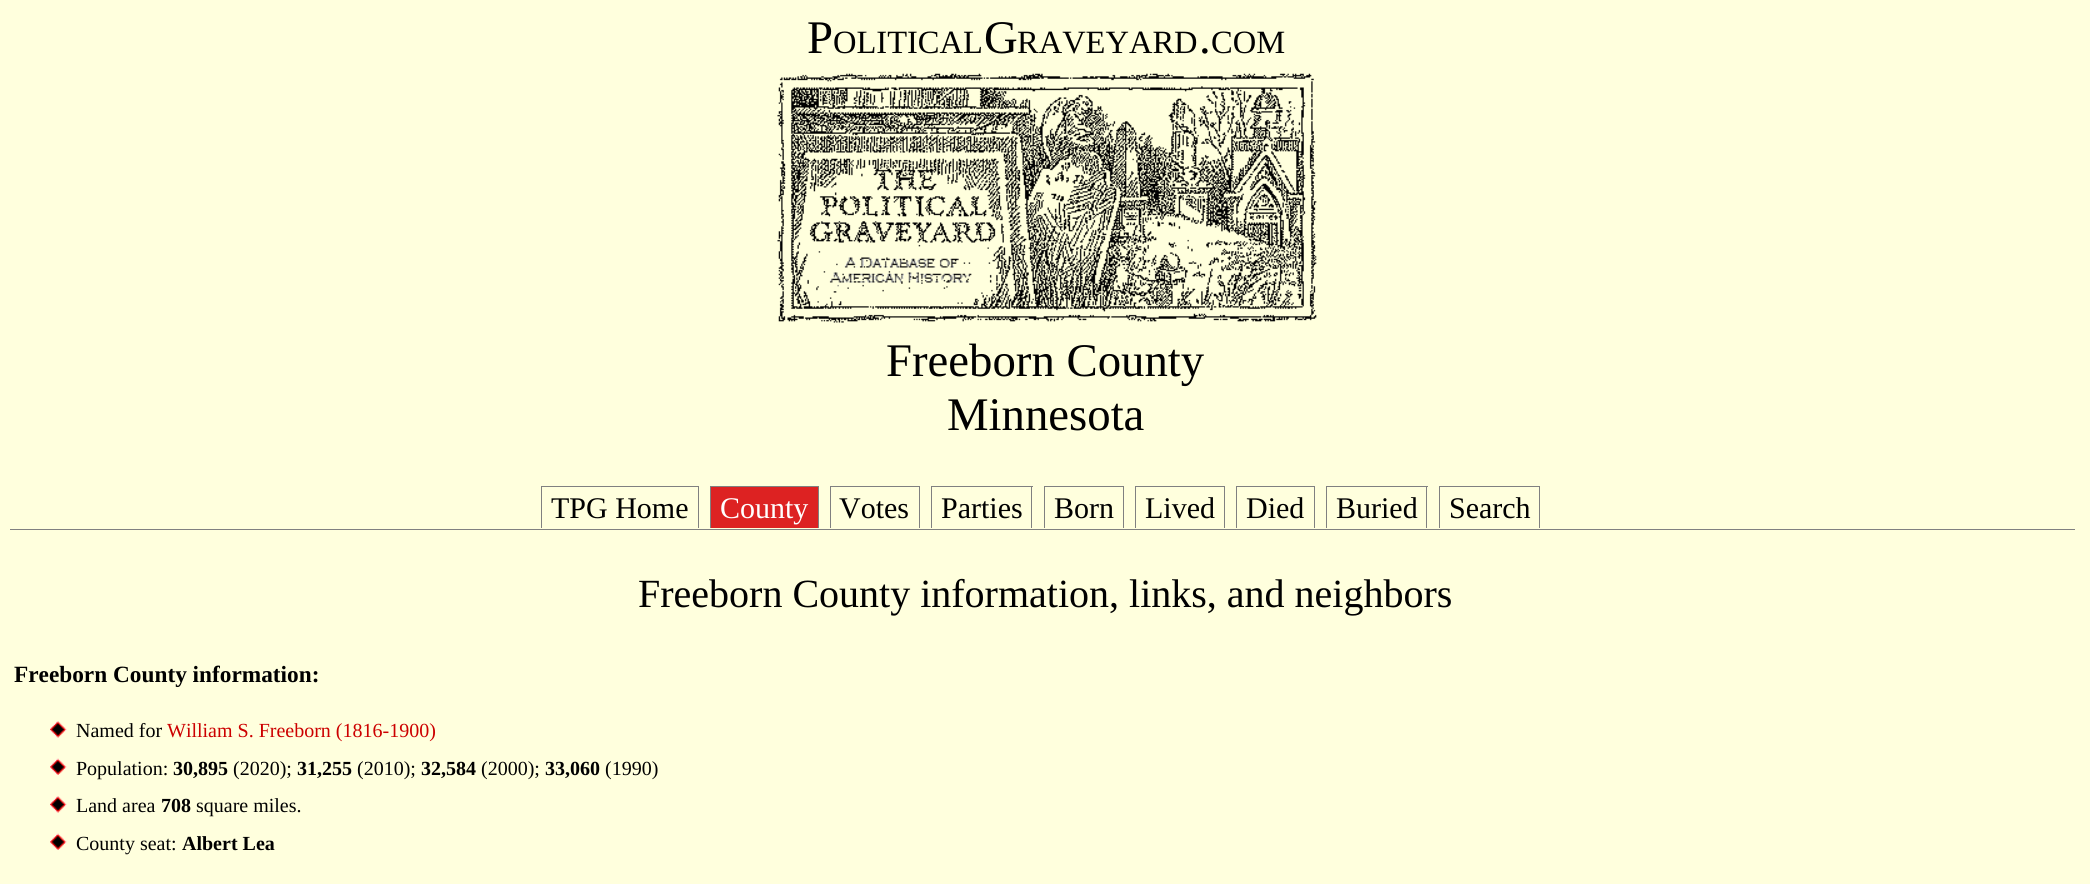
#include <cairo.h>
#include <math.h>
#include <stddef.h>

static cairo_t *c;
static void C(unsigned color){cairo_set_source_rgb(c, (color >> 16) / 255.0, (color >> 8 & 255) / 255.0, (color & 255) / 255.0);}
static void F(const char *family, double size, int italic, int bold){cairo_select_font_face(c, family, italic ? CAIRO_FONT_SLANT_ITALIC : CAIRO_FONT_SLANT_NORMAL,bold ? CAIRO_FONT_WEIGHT_BOLD : CAIRO_FONT_WEIGHT_NORMAL);cairo_set_font_size(c, size);}
static void T(double x, double y, const char *s){cairo_move_to(c, x, y);cairo_show_text(c, s);}
static void R(double x, double y, double w, double h){cairo_rectangle(c, x, y, w, h);cairo_fill(c);}
static void I(const char *path, double x, double y, double w, double h){cairo_surface_t *image = cairo_image_surface_create_from_png(path);cairo_save(c);cairo_set_source_surface(c, image, x, y);cairo_rectangle(c, x, y, w, h);cairo_fill(c);cairo_restore(c);cairo_surface_destroy(image);}
int main(void) {
cairo_surface_t *surface = cairo_image_surface_create(CAIRO_FORMAT_RGB24, 2090, 884);
c = cairo_create(surface);
cairo_font_options_t *options = cairo_font_options_create();
cairo_font_options_set_hint_metrics(options, CAIRO_HINT_METRICS_OFF);
cairo_font_options_set_hint_style(options, CAIRO_HINT_STYLE_NONE);
cairo_set_font_options(c, options);
cairo_set_miter_limit(c, 4);
C(0xffffdd);
cairo_paint(c);
F("Liberation Serif",46.75,0,0);
C(0x000000);
T(807,53,"P");
F("Liberation Serif",32.5,0,0);
T(833,53,"OLITICAL");
F("Liberation Serif",46.75,0,0);
T(984,53,"G");
F("Liberation Serif",32.5,0,0);
T(1017,53,"RAVEYARD");
F("Liberation Serif",46.75,0,0);
T(1199,53,".");
F("Liberation Serif",32.5,0,0);
T(1211,53,"COM");
I("1.png",777,73,540,250);
F("Liberation Serif",46.75,0,0);
T(886,376,"Freeborn County");
T(947,430,"Minnesota");
C(0x808080);
R(10,529,2065,1);
F("Liberation Serif",30,0,0);
C(0x000000);
T(551,518,"TPG Home");
C(0x808080);
R(541,486,158,1);
R(698,486,1,42);
R(541,486,1,42);
C(0xdd2222);
R(711,487,107,41);
C(0xffffff);
T(720,518,"County");
C(0x808080);
R(710,486,109,1);
R(818,486,1,42);
R(710,486,1,42);
C(0x000000);
T(839,518,"Votes");
C(0x808080);
R(830,486,90,1);
R(919,486,1,42);
R(830,486,1,42);
C(0x000000);
T(941,518,"Parties");
C(0x808080);
R(931,486,102,1);
R(1031,486,1,42);
R(931,486,1,42);
C(0x000000);
T(1054,518,"Born");
C(0x808080);
R(1044,486,80,1);
R(1123,486,1,42);
R(1044,486,1,42);
C(0x000000);
T(1145,518,"Lived");
C(0x808080);
R(1135,486,90,1);
R(1224,486,1,42);
R(1135,486,1,42);
C(0x000000);
T(1246,518,"Died");
C(0x808080);
R(1236,486,79,1);
R(1314,486,1,42);
R(1236,486,1,42);
C(0x000000);
T(1336,518,"Buried");
C(0x808080);
R(1326,486,102,1);
R(1426,486,1,42);
R(1326,486,1,42);
C(0x000000);
T(1449,518,"Search");
C(0x808080);
R(1439,486,101,1);
R(1539,486,1,42);
R(1439,486,1,42);
F("Liberation Serif",40,0,0);
C(0x000000);
T(638,607,"Freeborn County information, links, and neighbors");
F("Liberation Serif",23.3,0,1);
T(14,682,"Freeborn County information:");
I("2.png",50,721,17,17);
F("Liberation Serif",20,0,0);
T(76,737,"Named for");
C(0xcc0000);
T(167,737,"William S. Freeborn (1816-1900)");
I("3.png",50,758,17,17);
C(0x000000);
T(76,775,"Population:");
F("Liberation Serif",20,0,1);
T(173,775,"30,895");
F("Liberation Serif",20,0,0);
T(233,775,"(2020);");
F("Liberation Serif",20,0,1);
T(297,775,"31,255");
F("Liberation Serif",20,0,0);
T(357,775,"(2010);");
F("Liberation Serif",20,0,1);
T(421,775,"32,584");
F("Liberation Serif",20,0,0);
T(481,775,"(2000);");
F("Liberation Serif",20,0,1);
T(545,775,"33,060");
F("Liberation Serif",20,0,0);
T(605,775,"(1990)");
I("2.png",50,796,17,17);
T(76,812,"Land area");
F("Liberation Serif",20,0,1);
T(161,812,"708");
F("Liberation Serif",20,0,0);
T(196,812,"square miles.");
I("3.png",50,833,17,17);
T(76,850,"County seat:");
F("Liberation Serif",20,0,1);
T(182,850,"Albert Lea");
cairo_surface_write_to_png(surface, "o.png");
cairo_font_options_destroy(options);
cairo_destroy(c);
cairo_surface_destroy(surface);
return 0;
}
